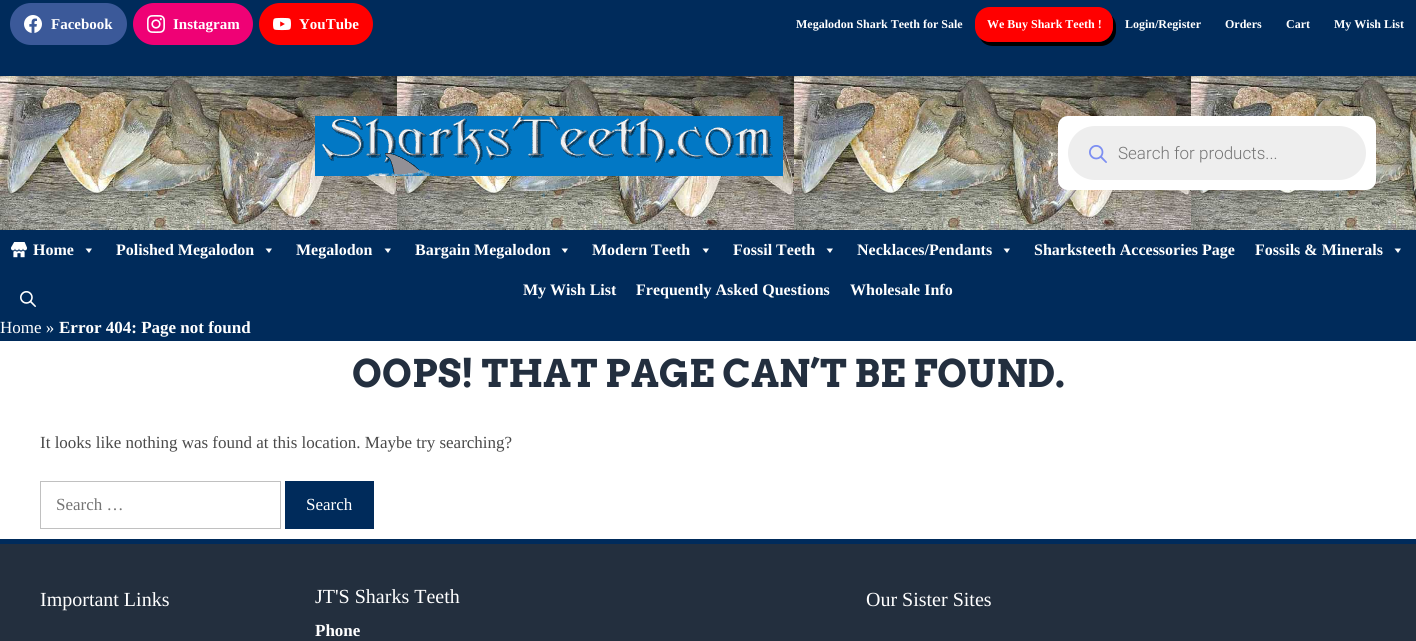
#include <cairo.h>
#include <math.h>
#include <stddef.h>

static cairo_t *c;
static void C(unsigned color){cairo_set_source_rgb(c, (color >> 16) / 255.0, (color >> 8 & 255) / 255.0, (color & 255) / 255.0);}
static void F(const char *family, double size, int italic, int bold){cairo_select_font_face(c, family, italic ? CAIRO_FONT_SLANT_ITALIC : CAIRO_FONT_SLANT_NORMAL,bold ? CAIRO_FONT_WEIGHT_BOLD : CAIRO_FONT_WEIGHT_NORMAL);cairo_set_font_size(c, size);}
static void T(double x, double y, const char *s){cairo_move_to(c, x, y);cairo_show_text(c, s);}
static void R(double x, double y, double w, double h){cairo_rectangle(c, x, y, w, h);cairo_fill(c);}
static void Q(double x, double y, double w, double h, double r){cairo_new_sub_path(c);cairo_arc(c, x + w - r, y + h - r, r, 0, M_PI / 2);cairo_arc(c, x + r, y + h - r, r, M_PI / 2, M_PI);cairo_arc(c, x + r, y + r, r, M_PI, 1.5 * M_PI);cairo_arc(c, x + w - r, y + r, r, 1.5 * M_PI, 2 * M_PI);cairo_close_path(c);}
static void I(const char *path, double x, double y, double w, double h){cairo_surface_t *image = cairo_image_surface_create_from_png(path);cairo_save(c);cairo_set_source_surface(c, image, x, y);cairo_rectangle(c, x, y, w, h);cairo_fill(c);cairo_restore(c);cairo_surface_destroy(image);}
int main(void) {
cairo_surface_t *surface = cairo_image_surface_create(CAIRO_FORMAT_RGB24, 1416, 641);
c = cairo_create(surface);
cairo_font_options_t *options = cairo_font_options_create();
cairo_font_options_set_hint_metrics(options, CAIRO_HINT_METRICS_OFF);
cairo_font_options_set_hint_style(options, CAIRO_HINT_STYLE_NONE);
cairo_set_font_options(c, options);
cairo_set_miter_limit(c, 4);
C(0x002b5b);
cairo_paint(c);
C(0x3b5999);
Q(10,3,117,42,21);
cairo_fill(c);
I("1.png",24,15,18,18);
F("Liberation Serif",15,0,1);
C(0xffffff);
T(51,29,"Facebook");
C(0xef0175);
Q(133,3,120,42,21);
cairo_fill(c);
I("2.png",147,15,18,18);
C(0xffffff);
T(173,29,"Instagram");
C(0xff0000);
Q(259,3,114,42,21);
cairo_fill(c);
I("3.png",273,17,18,14);
C(0xffffff);
T(299,29,"YouTube");
F("Liberation Serif",12,0,1);
T(796,28,"Megalodon Shark Teeth for Sale");
C(0x000000);
cairo_new_path(c);
cairo_move_to(c,980,38);
cairo_curve_to(c,982,43,987,46,993,46);
cairo_line_to(c,1101,46);
cairo_curve_to(c,1109,46,1116,39,1116,31);
cairo_line_to(c,1116,26);
cairo_curve_to(c,1116,22,1114,18,1111,15);
cairo_curve_to(c,1112,17,1113,20,1113,22);
cairo_line_to(c,1113,27);
cairo_curve_to(c,1113,35,1106,42,1098,42);
cairo_line_to(c,990,42);
cairo_curve_to(c,986,42,982,40,980,38);
cairo_close_path(c);
cairo_fill(c);
C(0xff0000);
Q(975,7,138,35,15);
cairo_fill(c);
C(0xffffff);
T(987,28,"We Buy Shark Teeth !");
T(1125,28,"Login/Register");
T(1225,28,"Orders");
T(1286,28,"Cart");
T(1334,28,"My Wish List");
I("4.png",0,76,1416,154);
I("5.png",315,116,468,60);
Q(1058,116,318,74,10);
cairo_fill(c);
C(0xeeeeee);
Q(1068,126,298,54,27);
cairo_fill(c);
I("6.png",1089,145,18,18);
F("Roboto Light",17,0,0);
C(0x757575);
T(1118,159,"Search for products...");
I("7.png",11,242,16,16);
F("Liberation Serif",16,0,1);
C(0xffffff);
T(33,255,"Home");
cairo_new_path(c);
cairo_move_to(c,92,248.5);
cairo_line_to(c,89,253);
cairo_line_to(c,85.5,248.5);
cairo_close_path(c);
cairo_fill(c);
T(116,255,"Polished Megalodon");
cairo_new_path(c);
cairo_move_to(c,272,248.5);
cairo_line_to(c,269,253);
cairo_line_to(c,265.5,248.5);
cairo_close_path(c);
cairo_fill(c);
T(296,255,"Megalodon");
cairo_new_path(c);
cairo_move_to(c,391,248.5);
cairo_line_to(c,388,253);
cairo_line_to(c,384.5,248.5);
cairo_close_path(c);
cairo_fill(c);
T(415,255,"Bargain Megalodon");
cairo_new_path(c);
cairo_move_to(c,568,248.5);
cairo_line_to(c,565,253);
cairo_line_to(c,561.5,248.5);
cairo_close_path(c);
cairo_fill(c);
T(592,255,"Modern Teeth");
cairo_new_path(c);
cairo_move_to(c,709,248.5);
cairo_line_to(c,706,253);
cairo_line_to(c,702.5,248.5);
cairo_close_path(c);
cairo_fill(c);
T(733,255,"Fossil Teeth");
cairo_new_path(c);
cairo_move_to(c,833,248.5);
cairo_line_to(c,830,253);
cairo_line_to(c,826.5,248.5);
cairo_close_path(c);
cairo_fill(c);
T(857,255,"Necklaces/Pendants");
cairo_new_path(c);
cairo_move_to(c,1010,248.5);
cairo_line_to(c,1007,253);
cairo_line_to(c,1003.5,248.5);
cairo_close_path(c);
cairo_fill(c);
T(1034,255,"Sharksteeth Accessories Page");
T(1255,255,"Fossils & Minerals");
cairo_new_path(c);
cairo_move_to(c,1401,248.5);
cairo_line_to(c,1398,253);
cairo_line_to(c,1394.5,248.5);
cairo_close_path(c);
cairo_fill(c);
T(523,295,"My Wish List");
T(636,295,"Frequently Asked Questions");
T(850,295,"Wholesale Info");
I("8.png",20,291,16,16);
F("Liberation Serif",17,0,0);
T(0,333,"Home »");
F("Liberation Serif",17,0,1);
T(59,333,"Error 404: Page not found");
R(0,341,1416,198);
F("Arvo",38,0,1);
C(0x232f3f);
T(352,387,"OOPS! THAT PAGE CAN’T BE FOUND.");
F("Liberation Serif",17,0,0);
C(0x4a4a4a);
T(40,448,"It looks like nothing was found at this location. Maybe try searching?");
cairo_rectangle(c,40.5,481.5,240,47);
C(0xc0c0c0);
cairo_set_line_width(c,1);
cairo_stroke(c);
C(0x757575);
T(56,510,"Search …");
C(0x002b5b);
R(285,481,89,48);
C(0xffffff);
T(306,510,"Search");
C(0x232f3e);
R(0,544,1416,97);
F("Liberation Serif",20,0,0);
C(0xffffff);
T(40,606,"Important Links");
T(315,603,"JT'S Sharks Teeth");
F("Liberation Serif",17,0,1);
T(315,636,"Phone");
F("Liberation Serif",20,0,0);
T(866,606,"Our Sister Sites");
cairo_surface_write_to_png(surface, "o.png");
cairo_font_options_destroy(options);
cairo_destroy(c);
cairo_surface_destroy(surface);
return 0;
}
